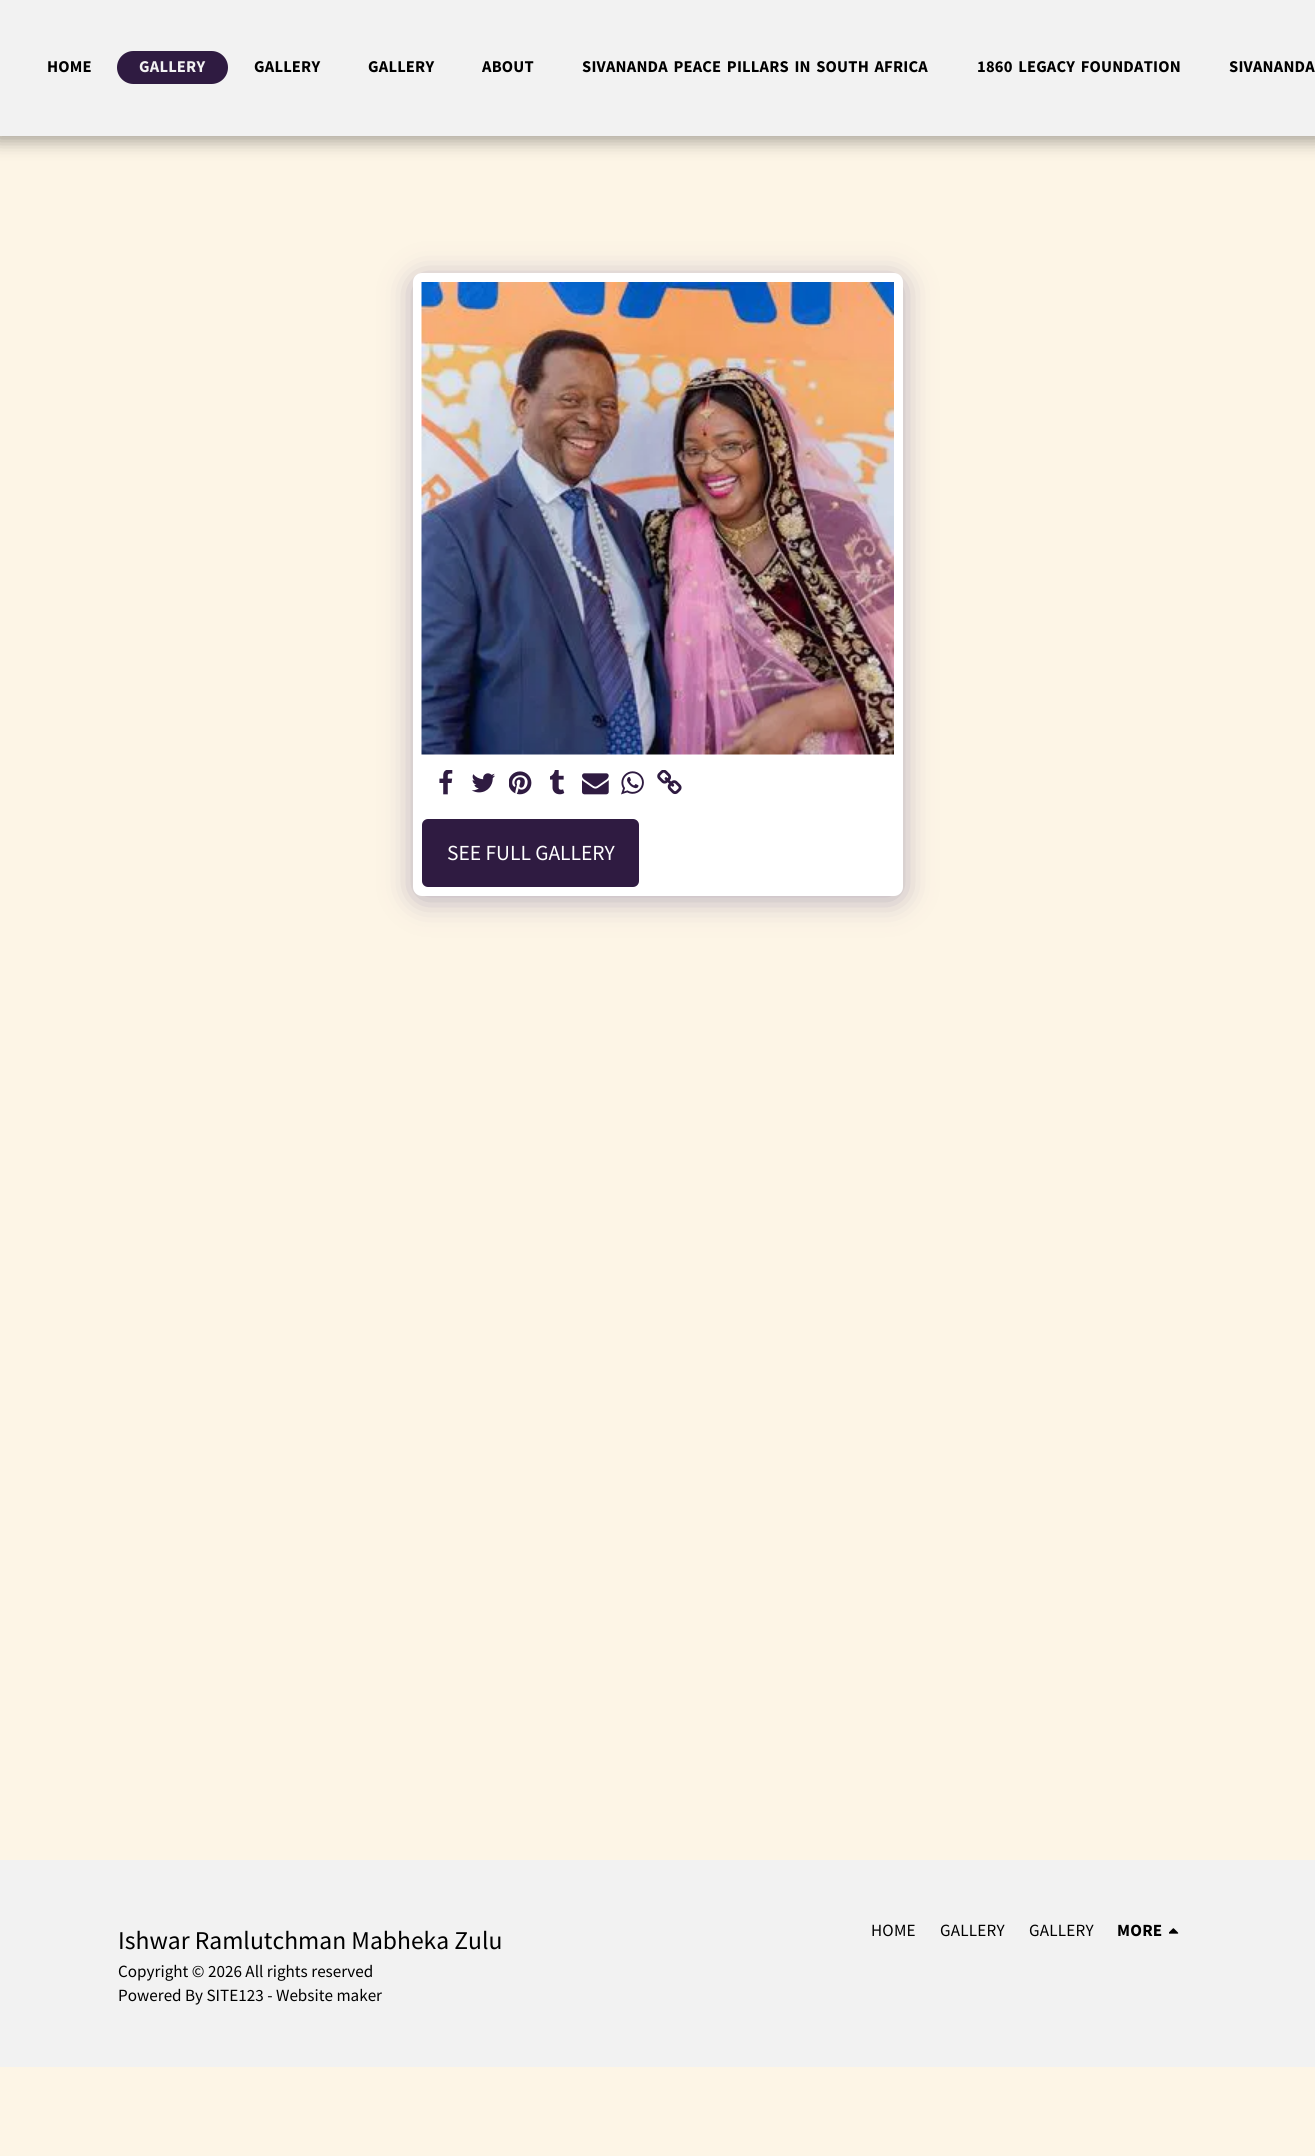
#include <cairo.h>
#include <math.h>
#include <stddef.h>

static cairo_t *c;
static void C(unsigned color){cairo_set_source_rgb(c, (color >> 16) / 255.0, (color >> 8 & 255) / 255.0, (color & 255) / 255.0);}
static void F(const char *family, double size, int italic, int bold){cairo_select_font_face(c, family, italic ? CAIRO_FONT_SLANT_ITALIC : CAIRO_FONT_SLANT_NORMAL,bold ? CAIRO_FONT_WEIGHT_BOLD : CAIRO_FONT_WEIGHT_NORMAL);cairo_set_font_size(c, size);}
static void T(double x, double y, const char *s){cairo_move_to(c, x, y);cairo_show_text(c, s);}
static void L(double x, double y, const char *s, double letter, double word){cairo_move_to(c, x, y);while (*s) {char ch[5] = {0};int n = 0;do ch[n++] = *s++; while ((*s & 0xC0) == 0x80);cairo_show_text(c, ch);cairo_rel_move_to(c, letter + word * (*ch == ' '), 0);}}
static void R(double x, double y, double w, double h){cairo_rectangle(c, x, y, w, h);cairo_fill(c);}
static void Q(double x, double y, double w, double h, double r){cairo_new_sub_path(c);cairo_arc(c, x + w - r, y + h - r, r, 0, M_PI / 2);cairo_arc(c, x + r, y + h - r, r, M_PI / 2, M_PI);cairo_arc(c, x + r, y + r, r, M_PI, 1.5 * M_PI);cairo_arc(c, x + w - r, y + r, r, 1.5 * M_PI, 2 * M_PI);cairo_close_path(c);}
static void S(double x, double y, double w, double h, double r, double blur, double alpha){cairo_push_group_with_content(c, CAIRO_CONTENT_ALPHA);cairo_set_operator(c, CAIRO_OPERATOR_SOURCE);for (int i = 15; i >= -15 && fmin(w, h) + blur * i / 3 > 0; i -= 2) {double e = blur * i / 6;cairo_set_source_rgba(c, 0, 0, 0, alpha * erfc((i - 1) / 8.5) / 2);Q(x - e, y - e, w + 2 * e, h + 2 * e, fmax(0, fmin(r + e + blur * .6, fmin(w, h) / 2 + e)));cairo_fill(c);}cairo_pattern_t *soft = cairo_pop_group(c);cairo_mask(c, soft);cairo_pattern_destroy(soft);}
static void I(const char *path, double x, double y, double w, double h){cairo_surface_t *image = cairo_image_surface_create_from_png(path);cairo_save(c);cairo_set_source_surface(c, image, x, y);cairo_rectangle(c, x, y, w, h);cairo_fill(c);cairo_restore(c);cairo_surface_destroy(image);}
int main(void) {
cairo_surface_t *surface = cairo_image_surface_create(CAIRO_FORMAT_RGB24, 1315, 2156);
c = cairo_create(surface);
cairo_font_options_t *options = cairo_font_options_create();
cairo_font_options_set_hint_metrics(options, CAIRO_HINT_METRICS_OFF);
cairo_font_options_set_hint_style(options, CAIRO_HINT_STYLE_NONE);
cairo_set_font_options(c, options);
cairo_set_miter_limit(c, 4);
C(0xfdf5e6);
cairo_paint(c);
C(0x000000);
S(-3,0,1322,141,0,9,.35);
C(0xf2f2f2);
R(0,0,1315,136);
F("Source Sans Pro",16.5,0,1);
C(0x000000);
L(47,72,"HOME",.2,0);
C(0x2f1b41);
Q(117,51,111,33,16.5);
cairo_fill(c);
C(0xf2f2f2);
L(139,72,"GALLERY",.2,0);
C(0x000000);
L(254,72,"GALLERY",.2,0);
L(368,72,"GALLERY",.2,0);
L(482,72,"ABOUT",.2,0);
L(582,72,"SIVANANDA PEACE PILLARS IN SOUTH AFRICA",.2,2);
L(977,72,"1860 LEGACY FOUNDATION",.2,2);
L(1229,72,"SIVANANDA",.2,2);
C(0x4d3f7a);
S(413,278,490,622,9,15,.4);
C(0xffffff);
Q(413,273,490,623,9);
cairo_fill(c);
I("1.png",421,282,473,473);
I("2.png",439,770,14,25);
I("3.png",471,773,24,20);
I("4.png",509,771,23,24);
I("5.png",550,770,15,25);
I("6.png",582,773,27,22);
I("7.png",621,771,23,24);
I("8.png",657,770,25,25);
C(0x2f1b41);
Q(423,820,215,66,5);
cairo_fill_preserve(c);
cairo_stroke(c);
F("Source Sans Pro",21.5,0,0);
C(0xffffff);
T(447,860,"SEE FULL GALLERY");
C(0xf2f2f2);
R(0,1860,1315,207);
F("Source Sans Pro",25.6,0,0);
C(0x000000);
T(118,1949,"Ishwar Ramlutchman Mabheka Zulu");
F("Source Sans Pro",17.1,0,0);
T(118,1977,"Copyright © 2026 All rights reserved");
T(118,2001,"Powered By SITE123 - Website maker");
L(871,1936,"HOME",.2,0);
L(940,1936,"GALLERY",.2,0);
L(1029,1936,"GALLERY",.2,0);
F("Source Sans Pro",17.1,0,1);
L(1117,1936,"MORE",.2,0);
I("9.png",1169,1928,10,6);
cairo_surface_write_to_png(surface, "o.png");
cairo_font_options_destroy(options);
cairo_destroy(c);
cairo_surface_destroy(surface);
return 0;
}
